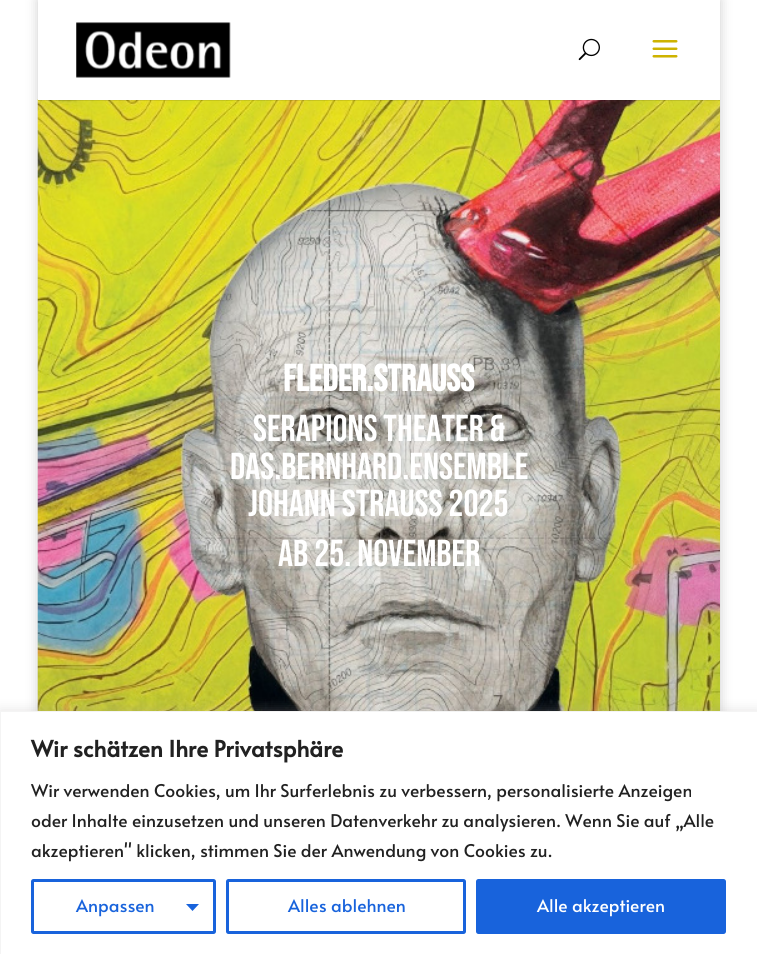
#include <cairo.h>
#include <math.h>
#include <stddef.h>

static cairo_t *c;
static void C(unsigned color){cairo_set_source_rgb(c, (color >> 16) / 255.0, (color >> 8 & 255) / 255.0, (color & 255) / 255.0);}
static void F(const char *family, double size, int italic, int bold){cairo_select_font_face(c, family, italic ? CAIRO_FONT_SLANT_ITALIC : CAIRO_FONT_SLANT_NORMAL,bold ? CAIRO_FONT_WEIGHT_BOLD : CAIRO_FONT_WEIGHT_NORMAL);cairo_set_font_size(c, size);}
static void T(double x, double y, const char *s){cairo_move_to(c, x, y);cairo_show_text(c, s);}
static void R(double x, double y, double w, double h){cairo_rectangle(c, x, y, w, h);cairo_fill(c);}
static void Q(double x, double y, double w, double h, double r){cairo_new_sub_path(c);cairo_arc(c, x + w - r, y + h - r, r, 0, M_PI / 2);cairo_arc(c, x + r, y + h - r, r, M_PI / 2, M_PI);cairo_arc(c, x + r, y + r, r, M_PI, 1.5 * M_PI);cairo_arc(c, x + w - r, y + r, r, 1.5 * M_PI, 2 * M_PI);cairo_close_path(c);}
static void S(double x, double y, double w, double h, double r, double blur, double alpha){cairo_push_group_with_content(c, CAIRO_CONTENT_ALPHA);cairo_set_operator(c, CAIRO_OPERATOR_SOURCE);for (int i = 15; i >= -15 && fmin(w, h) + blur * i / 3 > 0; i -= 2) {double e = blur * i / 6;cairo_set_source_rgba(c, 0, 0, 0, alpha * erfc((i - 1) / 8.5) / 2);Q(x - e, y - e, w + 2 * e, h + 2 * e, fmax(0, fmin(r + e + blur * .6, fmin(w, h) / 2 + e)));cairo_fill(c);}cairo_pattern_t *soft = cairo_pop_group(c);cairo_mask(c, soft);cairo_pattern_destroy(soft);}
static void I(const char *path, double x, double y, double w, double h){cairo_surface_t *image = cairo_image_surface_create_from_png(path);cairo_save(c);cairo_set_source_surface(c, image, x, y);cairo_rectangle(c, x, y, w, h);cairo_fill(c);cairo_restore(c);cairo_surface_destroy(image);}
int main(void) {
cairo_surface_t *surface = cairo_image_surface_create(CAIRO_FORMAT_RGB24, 757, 954);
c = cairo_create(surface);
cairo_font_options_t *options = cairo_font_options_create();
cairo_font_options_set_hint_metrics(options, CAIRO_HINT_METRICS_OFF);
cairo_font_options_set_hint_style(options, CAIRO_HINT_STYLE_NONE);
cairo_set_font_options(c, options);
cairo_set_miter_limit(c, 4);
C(0xffffff);
cairo_paint(c);
C(0x000000);
S(38,0,682,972,0,6,.2);
I("4.png",37,99,683,612);
cairo_set_source_rgba(c,0,0,0,0.1);
R(38,100,682,1);
C(0xffffff);
R(38,0,682,100);
I("1.png",76,22,155,56);
I("2.png",578,38,22,23);
I("3.png",652,40,26,18);
F("Bebas Neue",37.5,0,1);
T(283,391,"FLEDER.STRAUSS");
F("Bebas Neue",37.5,0,0);
T(253,441,"Serapions Theater &");
T(230,479,"das.bernhard.ensemble");
T(248,516,"Johann Strauss 2025");
T(278,566,"ab 25. November");
C(0xacabab);
S(0,710,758,244,0,6,.3);
C(0xffffff);
cairo_rectangle(c,.5,711.5,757,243);
cairo_fill_preserve(c);
C(0xf4f4f4);
cairo_set_line_width(c,1);
cairo_stroke(c);
F("Alata",22.5,0,1);
C(0x212121);
T(31,757,"Wir schätzen Ihre Privatsphäre");
F("Alata",17.5,0,0);
T(31,797,"Wir verwenden Cookies, um Ihr Surferlebnis zu verbessern, personalisierte Anzeigen");
T(31,827,"oder Inhalte einzusetzen und unseren Datenverkehr zu analysieren. Wenn Sie auf „Alle");
T(31,857,"akzeptieren\" klicken, stimmen Sie der Anwendung von Cookies zu.");
Q(32.5,880.5,182,52,1);
C(0x1863dc);
cairo_set_line_width(c,3);
cairo_stroke(c);
T(76,912,"Anpassen");
cairo_new_path(c);
cairo_move_to(c,186,904);
cairo_line_to(c,199,904);
cairo_line_to(c,192.5,911);
cairo_close_path(c);
cairo_fill(c);
Q(227.5,880.5,237,52,1);
cairo_stroke(c);
T(288,912,"Alles ablehnen");
Q(477.5,880.5,247,52,1);
cairo_fill_preserve(c);
cairo_stroke(c);
C(0xffffff);
T(537,912,"Alle akzeptieren");
cairo_surface_write_to_png(surface, "o.png");
cairo_font_options_destroy(options);
cairo_destroy(c);
cairo_surface_destroy(surface);
return 0;
}
